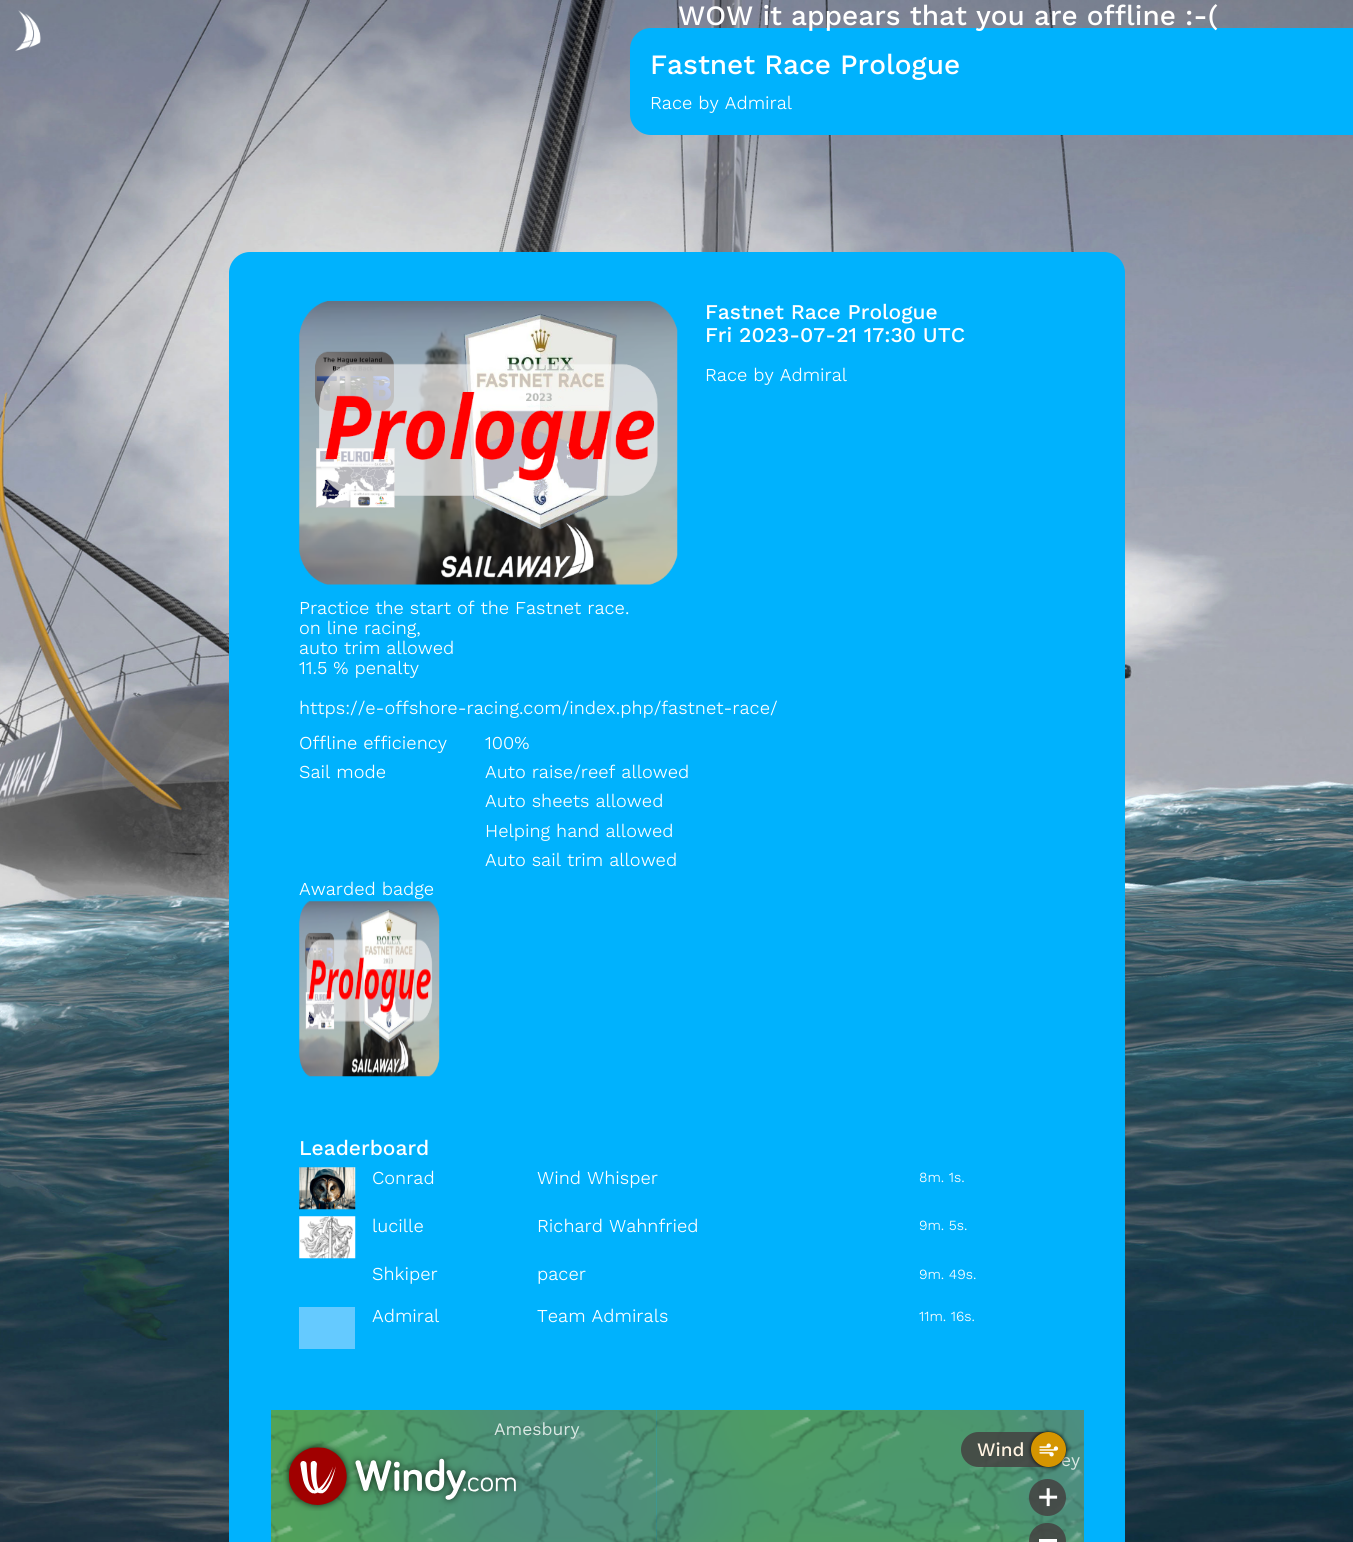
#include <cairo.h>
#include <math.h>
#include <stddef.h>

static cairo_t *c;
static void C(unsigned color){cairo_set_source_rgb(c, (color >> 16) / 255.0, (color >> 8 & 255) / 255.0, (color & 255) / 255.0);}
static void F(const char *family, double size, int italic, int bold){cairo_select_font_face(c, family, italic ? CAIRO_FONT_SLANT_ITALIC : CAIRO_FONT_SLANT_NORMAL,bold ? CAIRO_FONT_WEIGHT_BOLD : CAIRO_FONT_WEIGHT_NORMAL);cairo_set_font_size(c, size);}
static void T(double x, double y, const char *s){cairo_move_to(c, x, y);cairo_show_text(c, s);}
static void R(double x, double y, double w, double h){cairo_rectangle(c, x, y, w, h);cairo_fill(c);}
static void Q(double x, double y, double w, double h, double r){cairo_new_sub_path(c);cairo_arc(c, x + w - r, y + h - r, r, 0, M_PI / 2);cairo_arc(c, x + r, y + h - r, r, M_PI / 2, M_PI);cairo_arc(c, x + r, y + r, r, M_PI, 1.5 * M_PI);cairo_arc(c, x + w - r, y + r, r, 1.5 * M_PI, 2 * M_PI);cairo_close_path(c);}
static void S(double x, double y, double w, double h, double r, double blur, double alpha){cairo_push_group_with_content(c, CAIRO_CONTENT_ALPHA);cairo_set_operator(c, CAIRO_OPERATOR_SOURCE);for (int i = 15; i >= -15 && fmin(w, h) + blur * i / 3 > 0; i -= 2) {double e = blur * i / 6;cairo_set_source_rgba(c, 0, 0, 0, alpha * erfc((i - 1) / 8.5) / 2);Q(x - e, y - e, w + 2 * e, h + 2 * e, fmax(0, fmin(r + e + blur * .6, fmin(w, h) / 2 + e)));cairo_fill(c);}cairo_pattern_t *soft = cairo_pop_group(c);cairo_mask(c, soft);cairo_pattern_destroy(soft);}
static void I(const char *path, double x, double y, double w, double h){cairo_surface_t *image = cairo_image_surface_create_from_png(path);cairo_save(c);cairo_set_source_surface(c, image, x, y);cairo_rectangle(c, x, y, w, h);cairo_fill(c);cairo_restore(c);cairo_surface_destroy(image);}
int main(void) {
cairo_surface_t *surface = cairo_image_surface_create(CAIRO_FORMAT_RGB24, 1353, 1542);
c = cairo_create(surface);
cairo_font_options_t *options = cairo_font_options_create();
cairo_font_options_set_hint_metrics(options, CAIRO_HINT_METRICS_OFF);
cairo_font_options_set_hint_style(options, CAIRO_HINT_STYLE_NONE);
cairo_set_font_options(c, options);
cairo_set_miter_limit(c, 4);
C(0xffffff);
cairo_paint(c);
I("1.png",0,0,1353,1542);
I("2.png",15,10,26,41);
C(0x00b2fd);
cairo_new_path(c);
cairo_move_to(c,250,252);
cairo_line_to(c,1104,252);
cairo_curve_to(c,1115.5,252,1125,261.5,1125,273);
cairo_line_to(c,1125,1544);
cairo_line_to(c,229,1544);
cairo_line_to(c,229,273);
cairo_curve_to(c,229,261.5,238.5,252,250,252);
cairo_close_path(c);
cairo_fill(c);
cairo_new_path(c);
cairo_move_to(c,651,28);
cairo_line_to(c,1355,28);
cairo_line_to(c,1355,135);
cairo_line_to(c,651,135);
cairo_curve_to(c,639.5,135,630,125.5,630,114);
cairo_line_to(c,630,49);
cairo_curve_to(c,630,37.5,639.5,28,651,28);
cairo_close_path(c);
cairo_fill(c);
F("Work Sans Medium",28,0,0);
C(0xffffff);
T(678,25,"WOW it appears that you are offline :-(");
I("4.png",271,1410,386,132);
I("5.png",656,1410,428,132);
I("6.png",271,1410,812,132);
I("7.png",271,1411,386,131);
I("3.png",283,1441,239,70);
I("8.png",656,1411,428,131);
F("Work Sans",17.5,0,0);
C(0xdbe8e4);
T(494,1435,"Amesbury");
T(1061,1466,"ey");
cairo_set_source_rgba(c,0.267,0.255,0.255,0.84);
Q(961,1432,105,35,17.5);
cairo_fill(c);
F("Work Sans Medium",19,0,0);
C(0xfff3e1);
T(977,1456,"Wind");
C(0x000000);
S(1031,1432,35,35,17.5,2,1);
C(0xd49500);
cairo_arc(c,1048.5,1449.5,17.5,0,2 * M_PI);
cairo_fill(c);
I("9.png",1039,1443,20,14);
cairo_set_source_rgba(c,0.267,0.255,0.255,0.84);
cairo_arc(c,1047.5,1497.5,18.5,0,2 * M_PI);
cairo_fill(c);
I("10.png",1039,1488,19,19);
Q(1029,1523,37,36,18);
cairo_fill(c);
C(0xffffff);
R(1039,1539,18,3);
I("11.png",299,301,379,284);
F("Work Sans Medium",21,0,0);
T(705,319,"Fastnet Race Prologue");
T(705,342,"Fri 2023-07-21 17:30 UTC");
F("Work Sans Light",18.2,0,0);
T(705,381,"Race by Admiral");
T(299,614,"Practice the start of the Fastnet race.");
T(299,634,"on line racing,");
T(299,654,"auto trim allowed");
T(299,674,"11.5 % penalty");
T(299,714,"https://e-offshore-racing.com/index.php/fastnet-race/");
T(299,749,"Offline efficiency");
T(485,749,"100%");
T(299,778,"Sail mode");
T(485,778,"Auto raise/reef allowed");
T(485,807,"Auto sheets allowed");
T(485,837,"Helping hand allowed");
T(485,866,"Auto sail trim allowed");
T(299,895,"Awarded badge");
I("12.png",299,901,141,176);
F("Work Sans Medium",21,0,0);
T(299,1155,"Leaderboard");
I("13.png",299,1167,57,43);
F("Work Sans Light",18.2,0,0);
T(372,1184,"Conrad");
T(537,1184,"Wind Whisper");
F("Work Sans Light",14,0,0);
T(919,1182,"8m. 1s.");
I("14.png",299,1216,57,43);
F("Work Sans Light",18.2,0,0);
T(372,1232,"lucille");
T(537,1232,"Richard Wahnfried");
F("Work Sans Light",14,0,0);
T(919,1230,"9m. 5s.");
F("Work Sans Light",18.2,0,0);
T(372,1280,"Shkiper");
T(537,1280,"pacer");
F("Work Sans Light",14,0,0);
T(919,1279,"9m. 49s.");
C(0x65caff);
R(299,1307,56,42);
F("Work Sans Light",18.2,0,0);
C(0xffffff);
T(372,1322,"Admiral");
T(537,1322,"Team Admirals");
F("Work Sans Light",14,0,0);
T(919,1321,"11m. 16s.");
F("Work Sans Medium",28,0,0);
T(650,74,"Fastnet Race Prologue");
F("Work Sans Light",18.2,0,0);
T(650,109,"Race by Admiral");
cairo_surface_write_to_png(surface, "o.png");
cairo_font_options_destroy(options);
cairo_destroy(c);
cairo_surface_destroy(surface);
return 0;
}
